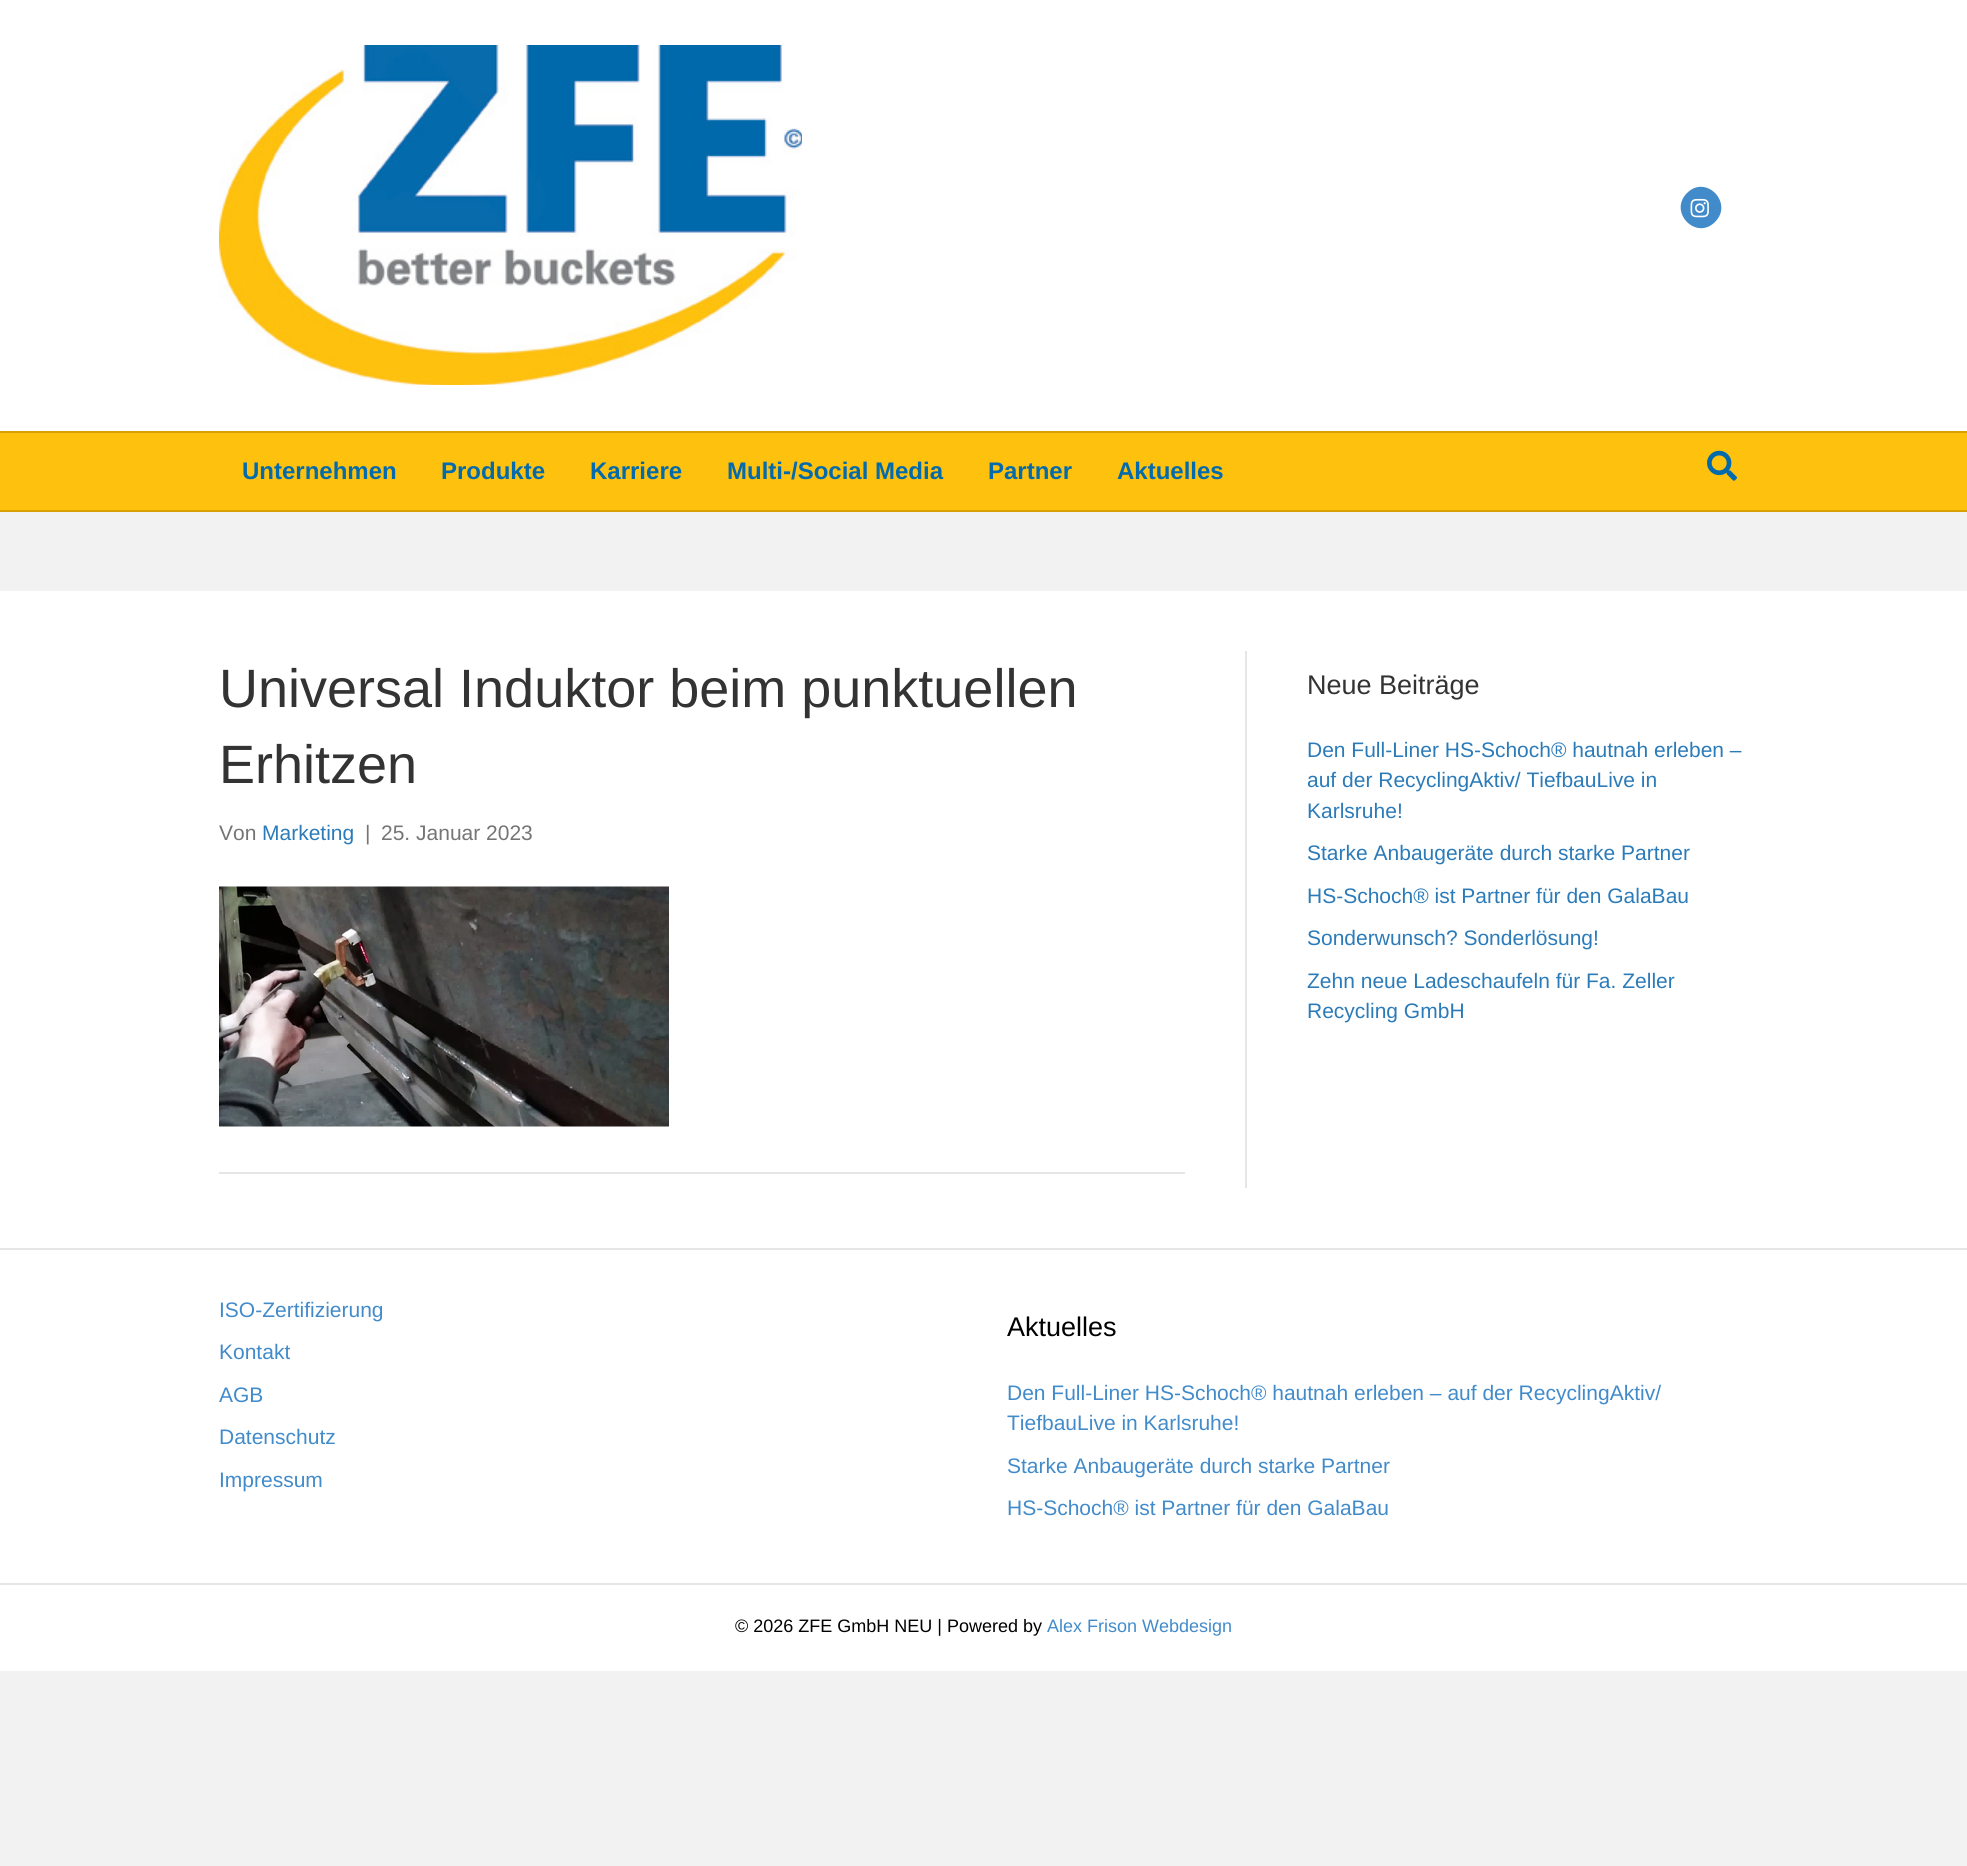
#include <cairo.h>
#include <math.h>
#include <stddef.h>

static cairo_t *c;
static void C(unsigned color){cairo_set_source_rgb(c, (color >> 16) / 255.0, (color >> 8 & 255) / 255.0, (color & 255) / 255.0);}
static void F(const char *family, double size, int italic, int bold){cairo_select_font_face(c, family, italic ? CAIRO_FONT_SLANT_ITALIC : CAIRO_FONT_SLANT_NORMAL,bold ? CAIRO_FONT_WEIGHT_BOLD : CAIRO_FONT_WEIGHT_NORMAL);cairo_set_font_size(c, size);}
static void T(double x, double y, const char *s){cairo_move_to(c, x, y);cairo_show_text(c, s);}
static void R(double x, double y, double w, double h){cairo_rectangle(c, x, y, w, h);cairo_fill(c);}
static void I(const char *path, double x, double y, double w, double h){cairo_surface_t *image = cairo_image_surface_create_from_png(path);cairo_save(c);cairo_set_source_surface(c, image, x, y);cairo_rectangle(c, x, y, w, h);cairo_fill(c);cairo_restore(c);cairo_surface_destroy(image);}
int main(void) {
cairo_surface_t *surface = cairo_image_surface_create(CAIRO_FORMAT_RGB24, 1967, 1866);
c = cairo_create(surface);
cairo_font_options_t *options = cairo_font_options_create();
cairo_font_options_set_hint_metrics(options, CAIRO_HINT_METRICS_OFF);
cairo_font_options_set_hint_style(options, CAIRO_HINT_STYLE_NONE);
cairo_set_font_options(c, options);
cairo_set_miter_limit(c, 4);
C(0xf2f2f2);
cairo_paint(c);
C(0xffffff);
R(0,0,1967,431);
I("1.png",219,45,583,340);
C(0x428bca);
cairo_new_path(c);
cairo_move_to(c,1687,193);
cairo_curve_to(c,1706,174,1734,203,1715,222);
cairo_curve_to(c,1696,241,1668,212,1687,193);
cairo_close_path(c);
cairo_fill(c);
I("2.png",1690,198,19,20);
C(0xfec10e);
R(0,433,1967,77);
C(0xd8a101);
R(0,431,1967,2);
R(0,510,1967,2);
F("Liberation Sans",24,0,1);
C(0x036aac);
T(242,479,"Unternehmen");
T(441,479,"Produkte");
T(590,479,"Karriere");
T(727,479,"Multi-/Social Media");
T(988,479,"Partner");
T(1117,479,"Aktuelles");
I("3.png",1707,450,30,31);
C(0xffffff);
R(0,591,1967,657);
C(0xe6e6e6);
R(1245,651,2,537);
F("Liberation Sans",54,0,0);
C(0x333333);
T(219,707,"Universal Induktor beim punktuellen");
T(219,783,"Erhitzen");
F("Liberation Sans",21,0,0);
C(0x757575);
T(219,840,"Von");
C(0x2b7bb9);
T(262,840,"Marketing");
C(0x757575);
T(365,840,"|");
T(381,840,"25. Januar 2023");
I("4.png",219,886,450,241);
C(0xe6e6e6);
R(219,1172,966,2);
F("Liberation Sans",27,0,0);
C(0x333333);
T(1307,694,"Neue Beiträge");
F("Liberation Sans",21,0,0);
C(0x2b7bb9);
T(1307,757,"Den Full-Liner HS-Schoch® hautnah erleben –");
T(1307,787,"auf der RecyclingAktiv/ TiefbauLive in");
T(1307,818,"Karlsruhe!");
T(1307,860,"Starke Anbaugeräte durch starke Partner");
T(1307,903,"HS-Schoch® ist Partner für den GalaBau");
T(1307,945,"Sonderwunsch? Sonderlösung!");
T(1307,988,"Zehn neue Ladeschaufeln für Fa. Zeller");
T(1307,1018,"Recycling GmbH");
C(0xffffff);
R(0,1250,1967,333);
C(0xe6e6e6);
R(0,1248,1967,2);
C(0x428bca);
T(219,1317,"ISO-Zertifizierung");
T(219,1359,"Kontakt");
T(219,1402,"AGB");
T(219,1444,"Datenschutz");
T(219,1487,"Impressum");
F("Liberation Sans",27,0,0);
C(0x000000);
T(1007,1336,"Aktuelles");
F("Liberation Sans",21,0,0);
C(0x428bca);
T(1007,1400,"Den Full-Liner HS-Schoch® hautnah erleben – auf der RecyclingAktiv/");
T(1007,1430,"TiefbauLive in Karlsruhe!");
T(1007,1473,"Starke Anbaugeräte durch starke Partner");
T(1007,1515,"HS-Schoch® ist Partner für den GalaBau");
C(0xffffff);
R(0,1585,1967,86);
C(0xe6e6e6);
R(0,1583,1967,2);
F("Liberation Sans",18,0,0);
C(0x000000);
T(735,1632,"© 2026 ZFE GmbH NEU | Powered by");
C(0x428bca);
T(1047,1632,"Alex Frison Webdesign");
cairo_surface_write_to_png(surface, "o.png");
cairo_font_options_destroy(options);
cairo_destroy(c);
cairo_surface_destroy(surface);
return 0;
}
